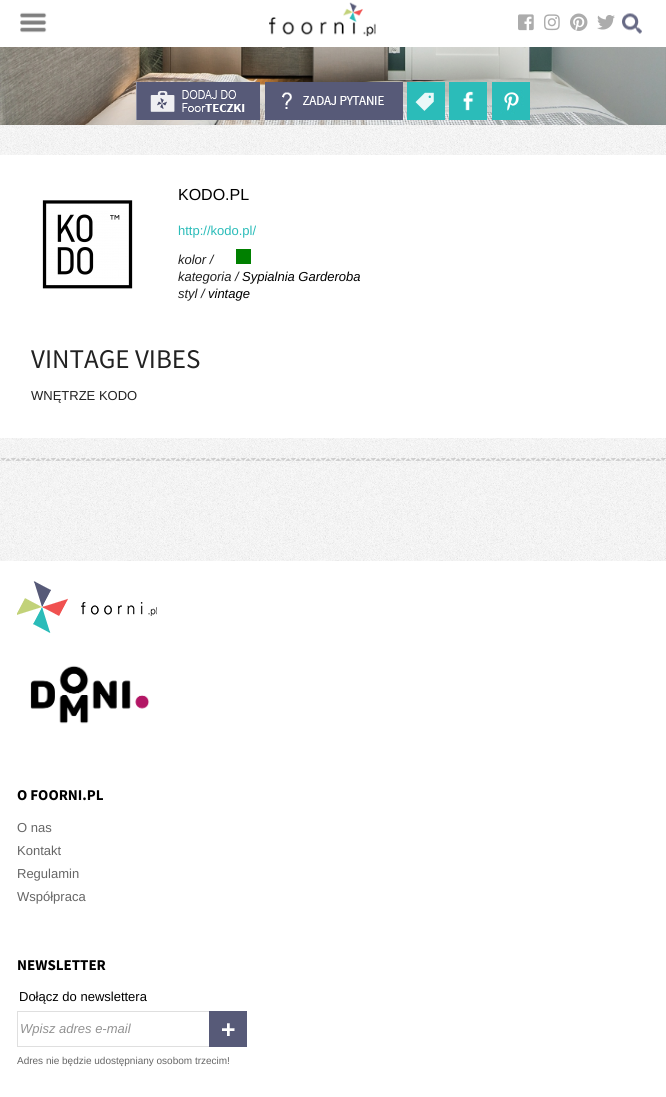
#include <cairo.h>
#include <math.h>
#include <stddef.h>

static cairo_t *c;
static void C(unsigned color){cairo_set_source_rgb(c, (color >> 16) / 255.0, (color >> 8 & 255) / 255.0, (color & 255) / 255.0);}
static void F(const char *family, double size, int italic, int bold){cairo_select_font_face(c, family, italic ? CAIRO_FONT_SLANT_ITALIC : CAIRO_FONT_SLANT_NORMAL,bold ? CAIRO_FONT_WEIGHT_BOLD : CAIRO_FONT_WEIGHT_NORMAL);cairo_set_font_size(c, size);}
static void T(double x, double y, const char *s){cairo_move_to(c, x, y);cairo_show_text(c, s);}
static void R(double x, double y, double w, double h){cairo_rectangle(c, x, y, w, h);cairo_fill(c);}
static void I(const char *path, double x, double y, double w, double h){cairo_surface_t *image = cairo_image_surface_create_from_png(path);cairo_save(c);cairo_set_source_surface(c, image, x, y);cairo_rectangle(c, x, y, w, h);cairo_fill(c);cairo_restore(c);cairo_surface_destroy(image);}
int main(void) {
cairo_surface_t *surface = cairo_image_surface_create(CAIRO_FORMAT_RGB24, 666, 1097);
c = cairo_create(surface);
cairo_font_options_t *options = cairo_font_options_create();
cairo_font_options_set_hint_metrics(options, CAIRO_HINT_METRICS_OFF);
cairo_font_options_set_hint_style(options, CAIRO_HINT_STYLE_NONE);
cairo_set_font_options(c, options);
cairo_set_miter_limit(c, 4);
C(0xffffff);
cairo_paint(c);
I("1.png",0,125,666,436);
I("2.png",20,12,27,21);
I("3.png",269,2,107,35);
I("4.png",518,14,16,17);
I("5.png",544,14,16,17);
I("6.png",570,13,18,18);
I("7.png",597,15,18,15);
I("8.png",622,13,20,21);
I("9.png",0,47,666,78);
I("10.png",136,82,124,38);
I("11.png",265,82,138,38);
I("12.png",407,82,38,38);
I("13.png",449,82,38,38);
I("14.png",492,82,38,38);
C(0xffffff);
R(0,155,666,283);
F("Arimo",16,0,0);
C(0x000000);
T(178,200,"KODO.PL");
I("15.png",42,200,91,89);
F("Arimo",13,0,0);
C(0x2bbcb9);
T(178,235,"http://kodo.pl/");
F("Arimo",13,1,0);
C(0x222222);
T(178,264,"kolor /");
C(0x008000);
R(236,249,15,15);
C(0x222222);
T(178,281,"kategoria /");
C(0x000000);
T(242,281,"Sypialnia Garderoba");
C(0x222222);
T(178,298,"styl /");
C(0x000000);
T(208,298,"vintage");
F("Source Sans Pro",27,0,0);
C(0x222222);
T(31,368,"VINTAGE VIBES");
F("Arimo",13,0,0);
T(31,400,"WNĘTRZE KODO");
I("16.png",0,458,666,3);
I("17.png",17,581,140,52);
I("18.png",30,665,120,59);
F("Source Sans Pro",15,0,1);
C(0x000000);
T(17,800,"O FOORNI.PL");
F("Arimo",13,0,0);
C(0x666666);
T(17,832,"O nas");
T(17,855,"Kontakt");
T(17,878,"Regulamin");
T(17,901,"Współpraca");
F("Source Sans Pro",15,0,1);
C(0x000000);
T(17,970,"NEWSLETTER");
F("Arimo",13,0,0);
T(19,1001,"Dołącz do newslettera");
cairo_rectangle(c,17.5,1011.5,229,35);
C(0xdfdfdf);
cairo_set_line_width(c,1);
cairo_stroke(c);
F("Liberation Sans",13,1,0);
C(0x929292);
T(20,1033,"Wpisz adres e-mail");
I("19.png",209,1011,38,36);
F("Arimo",10,0,0);
C(0x666666);
T(17,1064,"Adres nie będzie udostępniany osobom trzecim!");
cairo_surface_write_to_png(surface, "o.png");
cairo_font_options_destroy(options);
cairo_destroy(c);
cairo_surface_destroy(surface);
return 0;
}
